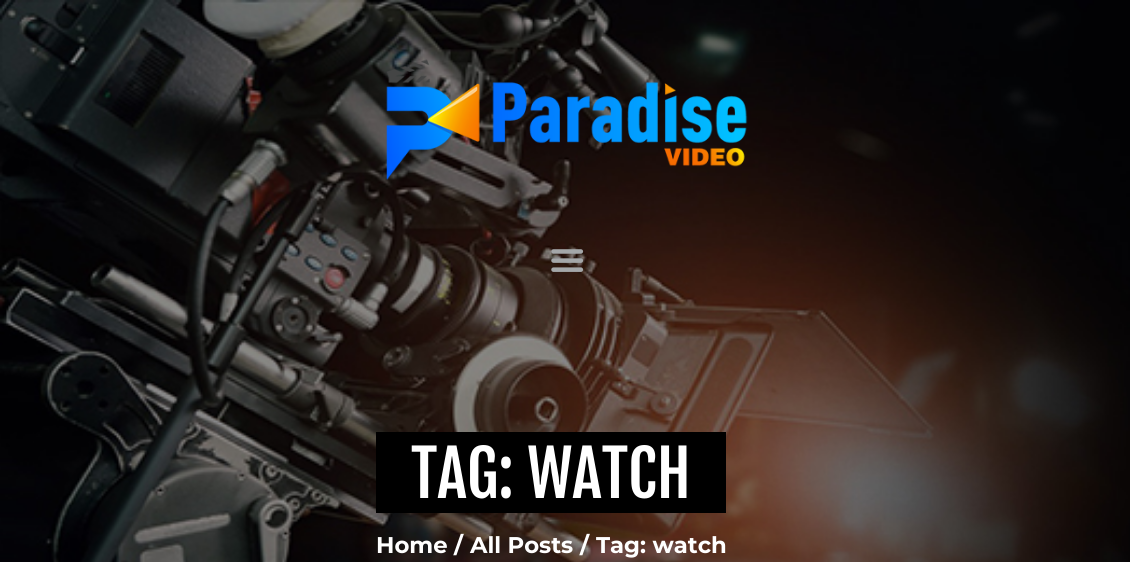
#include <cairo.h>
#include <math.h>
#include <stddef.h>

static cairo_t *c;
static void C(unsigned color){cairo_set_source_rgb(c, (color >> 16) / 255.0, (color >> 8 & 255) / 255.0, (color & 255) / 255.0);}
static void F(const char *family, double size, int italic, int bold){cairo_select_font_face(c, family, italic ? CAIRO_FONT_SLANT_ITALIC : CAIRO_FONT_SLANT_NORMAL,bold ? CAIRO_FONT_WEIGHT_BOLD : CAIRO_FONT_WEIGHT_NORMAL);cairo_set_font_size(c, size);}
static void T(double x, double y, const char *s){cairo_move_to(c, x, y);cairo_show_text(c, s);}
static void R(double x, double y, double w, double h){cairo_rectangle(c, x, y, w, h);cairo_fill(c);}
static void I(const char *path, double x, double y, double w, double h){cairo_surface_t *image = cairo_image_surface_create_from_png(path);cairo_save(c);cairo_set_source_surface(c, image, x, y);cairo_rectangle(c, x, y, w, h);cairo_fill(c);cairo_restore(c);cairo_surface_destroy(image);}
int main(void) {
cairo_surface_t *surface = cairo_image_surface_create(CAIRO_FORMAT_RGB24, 1130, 562);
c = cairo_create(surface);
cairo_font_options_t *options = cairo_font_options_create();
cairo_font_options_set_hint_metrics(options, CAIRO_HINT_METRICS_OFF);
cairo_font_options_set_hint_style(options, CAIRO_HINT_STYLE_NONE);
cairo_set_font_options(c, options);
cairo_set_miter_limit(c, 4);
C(0xffffff);
cairo_paint(c);
I("1.png",0,0,1130,562);
I("2.png",386,59,362,121);
I("3.png",551,249,33,23);
C(0x000000);
R(376,432,350,81);
F("Fjalla One",63,0,0);
C(0xffffff);
T(411,498,"TAG: WATCH");
F("Montserrat",22.75,0,1);
T(376,553,"Home");
T(454,553,"/");
T(470,553,"All Posts");
T(580,553,"/");
T(596,553,"Tag: watch");
cairo_surface_write_to_png(surface, "o.png");
cairo_font_options_destroy(options);
cairo_destroy(c);
cairo_surface_destroy(surface);
return 0;
}
